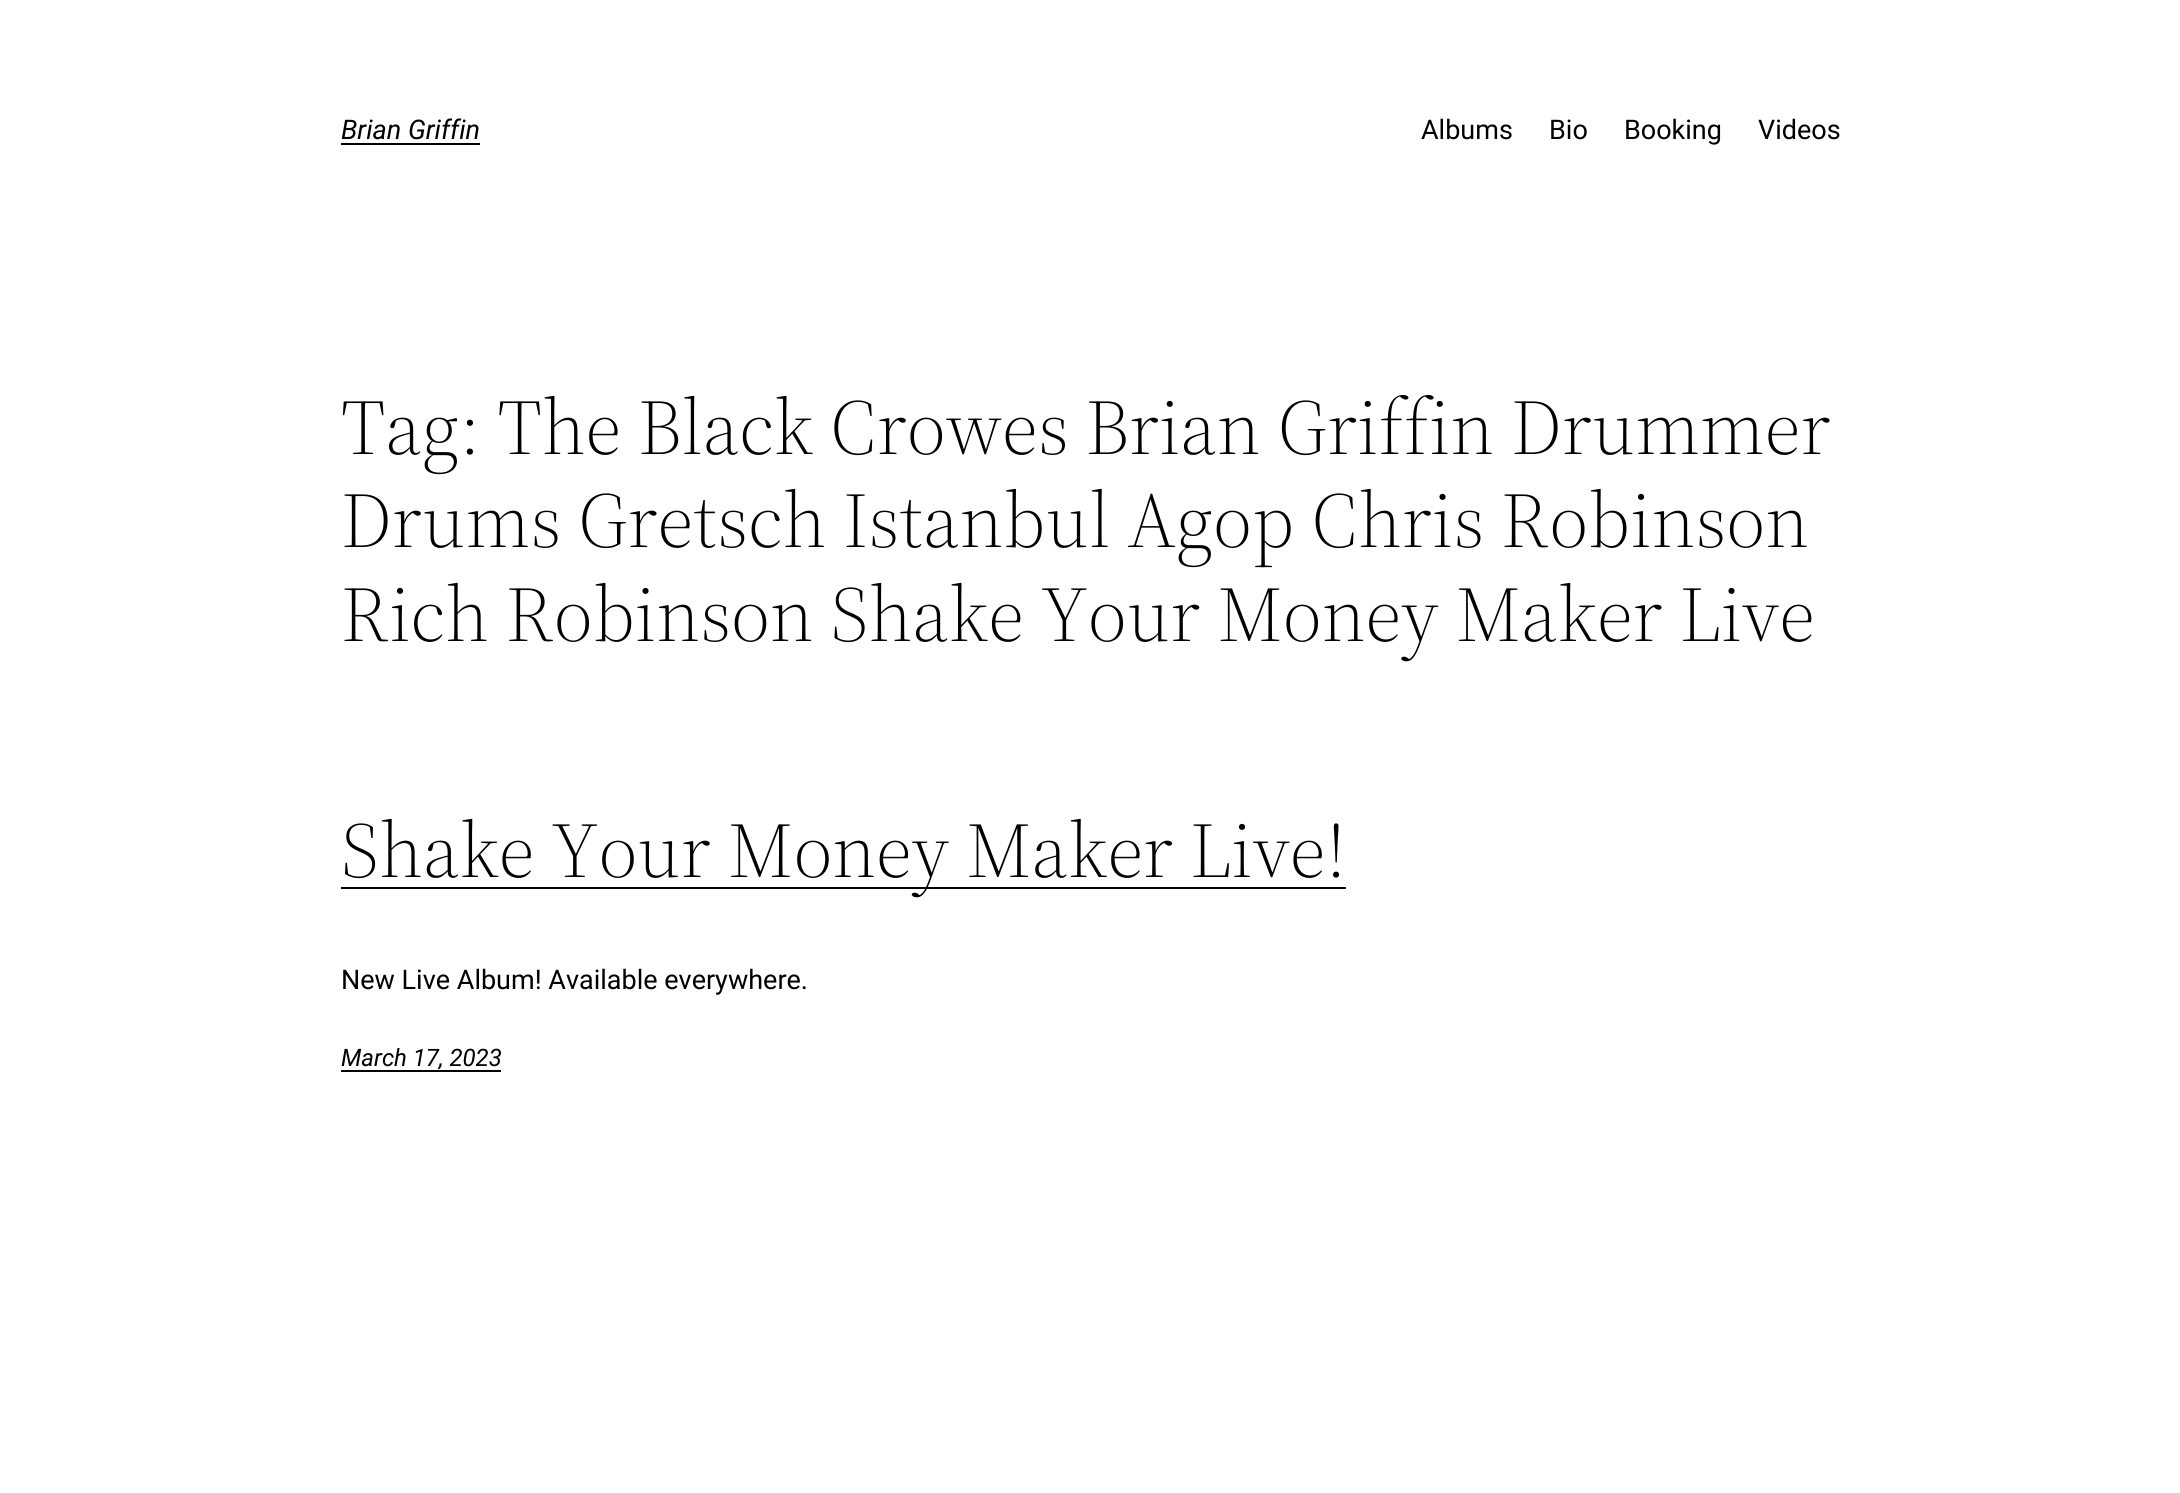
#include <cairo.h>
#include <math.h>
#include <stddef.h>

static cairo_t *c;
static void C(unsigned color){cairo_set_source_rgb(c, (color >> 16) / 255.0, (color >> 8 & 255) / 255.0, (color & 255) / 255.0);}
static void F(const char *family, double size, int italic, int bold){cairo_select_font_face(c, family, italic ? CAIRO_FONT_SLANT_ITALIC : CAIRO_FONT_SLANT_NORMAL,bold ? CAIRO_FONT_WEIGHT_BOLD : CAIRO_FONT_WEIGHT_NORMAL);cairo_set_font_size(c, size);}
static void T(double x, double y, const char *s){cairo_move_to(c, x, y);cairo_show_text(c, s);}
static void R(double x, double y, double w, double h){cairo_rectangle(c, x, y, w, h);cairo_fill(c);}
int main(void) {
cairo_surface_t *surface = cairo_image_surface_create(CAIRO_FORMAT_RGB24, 2180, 1493);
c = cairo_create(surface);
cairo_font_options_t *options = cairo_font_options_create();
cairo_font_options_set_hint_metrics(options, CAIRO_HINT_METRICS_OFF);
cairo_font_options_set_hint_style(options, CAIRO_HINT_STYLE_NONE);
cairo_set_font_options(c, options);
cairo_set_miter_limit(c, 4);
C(0xffffff);
cairo_paint(c);
F("Roboto",27,1,0);
C(0x000000);
T(341,139,"Brian Griffin");
R(341,143,139,2);
F("Roboto",27,0,0);
T(1421,139,"Albums");
T(1549,139,"Bio");
T(1624,139,"Booking");
T(1758,139,"Videos");
F("Source Serif 4 Light",78,0,0);
T(341,454,"Tag: The Black Crowes Brian Griffin Drummer");
T(341,547,"Drums Gretsch Istanbul Agop Chris Robinson");
T(341,641,"Rich Robinson Shake Your Money Maker Live");
R(341,887,1005,2);
T(341,877,"Shake Your Money Maker Live!");
F("Roboto",27,0,0);
T(341,989,"New Live Album! Available everywhere.");
F("Roboto",24,1,0);
T(341,1066,"March 17, 2023");
R(341,1070,160,2);
cairo_surface_write_to_png(surface, "o.png");
cairo_font_options_destroy(options);
cairo_destroy(c);
cairo_surface_destroy(surface);
return 0;
}
